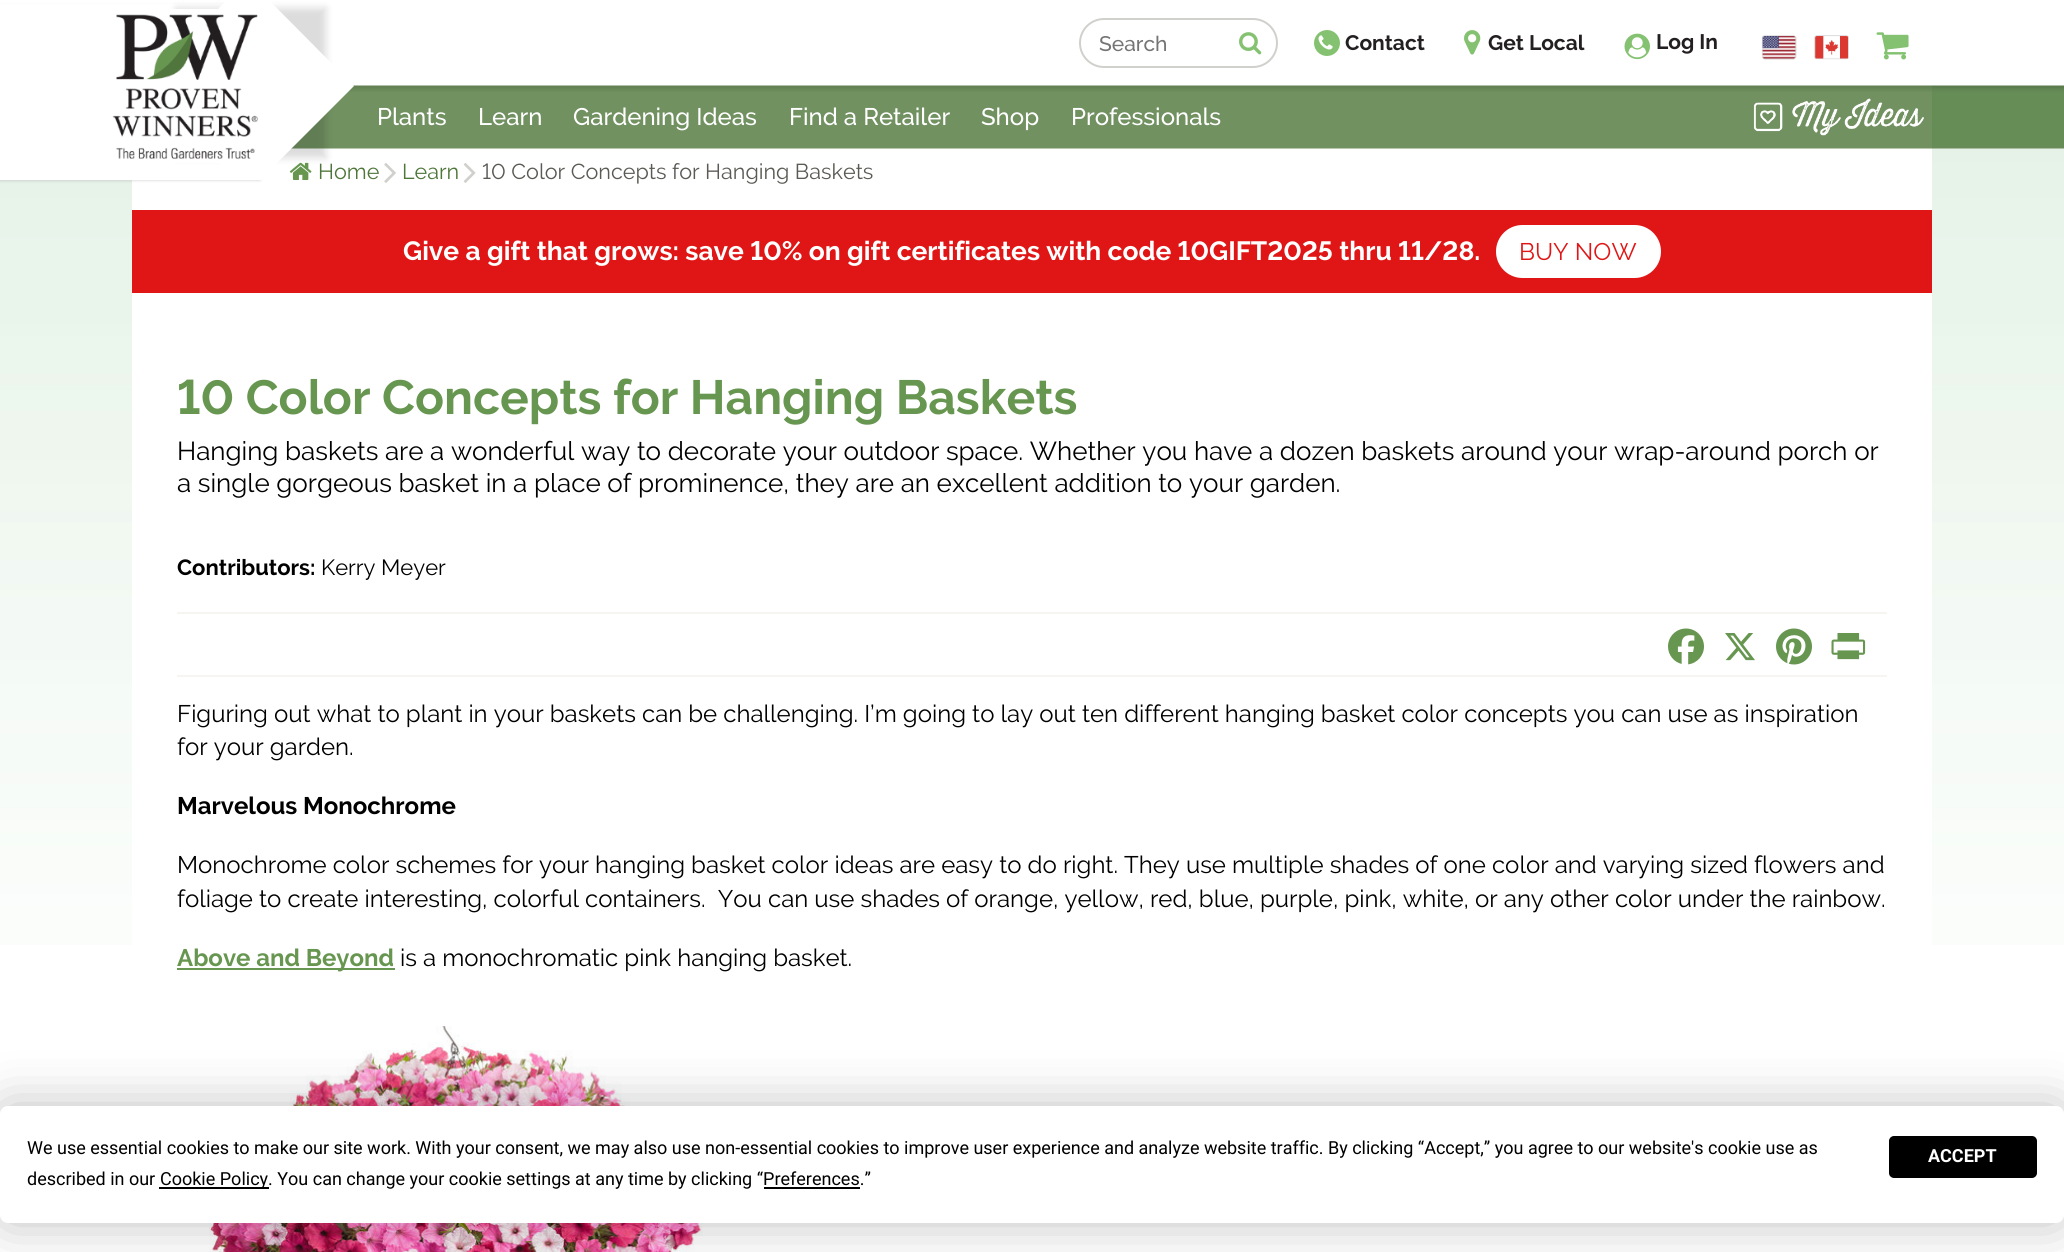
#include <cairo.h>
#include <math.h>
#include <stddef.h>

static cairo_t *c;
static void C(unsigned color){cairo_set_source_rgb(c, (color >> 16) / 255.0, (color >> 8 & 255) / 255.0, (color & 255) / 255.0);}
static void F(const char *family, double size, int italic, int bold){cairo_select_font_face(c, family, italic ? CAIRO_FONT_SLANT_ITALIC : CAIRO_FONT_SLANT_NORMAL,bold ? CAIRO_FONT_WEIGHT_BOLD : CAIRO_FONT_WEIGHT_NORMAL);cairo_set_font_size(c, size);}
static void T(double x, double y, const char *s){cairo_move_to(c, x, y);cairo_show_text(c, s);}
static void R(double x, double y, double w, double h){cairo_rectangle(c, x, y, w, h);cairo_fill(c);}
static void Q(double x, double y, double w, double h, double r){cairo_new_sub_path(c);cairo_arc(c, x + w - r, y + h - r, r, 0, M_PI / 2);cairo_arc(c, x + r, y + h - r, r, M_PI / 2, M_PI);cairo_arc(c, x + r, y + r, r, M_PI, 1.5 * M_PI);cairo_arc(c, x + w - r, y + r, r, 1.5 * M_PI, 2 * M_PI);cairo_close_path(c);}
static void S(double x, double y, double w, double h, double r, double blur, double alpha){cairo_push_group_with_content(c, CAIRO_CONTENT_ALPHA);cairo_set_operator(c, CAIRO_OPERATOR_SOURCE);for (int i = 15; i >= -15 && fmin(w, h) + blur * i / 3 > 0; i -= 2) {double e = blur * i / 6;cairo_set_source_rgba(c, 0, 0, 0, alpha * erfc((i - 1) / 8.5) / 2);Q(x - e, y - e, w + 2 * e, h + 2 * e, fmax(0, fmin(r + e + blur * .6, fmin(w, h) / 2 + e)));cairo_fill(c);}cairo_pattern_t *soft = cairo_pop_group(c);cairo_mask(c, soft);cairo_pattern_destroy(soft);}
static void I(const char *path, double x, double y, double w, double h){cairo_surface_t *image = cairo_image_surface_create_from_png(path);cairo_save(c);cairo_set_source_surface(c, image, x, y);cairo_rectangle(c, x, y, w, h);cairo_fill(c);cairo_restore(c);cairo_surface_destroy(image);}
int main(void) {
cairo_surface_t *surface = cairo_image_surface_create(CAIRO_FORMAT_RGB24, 2064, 1252);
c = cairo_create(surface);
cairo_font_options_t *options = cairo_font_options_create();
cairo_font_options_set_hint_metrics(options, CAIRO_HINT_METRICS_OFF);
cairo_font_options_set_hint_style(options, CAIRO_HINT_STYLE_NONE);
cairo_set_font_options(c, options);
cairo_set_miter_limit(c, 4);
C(0xffffff);
cairo_paint(c);
I("1.png",0,180,132,765);
C(0xc9c9c9);
S(-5,6,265,174,0,1.5,1);
C(0xffffff);
R(0,4,262,176);
I("11.png",291,85,1641,64);
C(0x000000);
S(176,8,150,150,0,4,.14);
cairo_save(c);
cairo_rectangle(c,110,0,250,180);
cairo_clip(c);
C(0xffffff);
cairo_new_path(c);
cairo_move_to(c,248,-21);
cairo_line_to(c,354,86);
cairo_line_to(c,248,192);
cairo_line_to(c,141,86);
cairo_close_path(c);
cairo_fill(c);
cairo_restore(c);
I("2.png",112,9,146,154);
Q(1080,19,197,48,24);
C(0xd0d0cd);
cairo_stroke(c);
F("Raleway Medium",21,0,0);
C(0x757575);
T(1099,51,"Search");
I("3.png",1239,32,23,23);
C(0x84c271);
cairo_arc(c,1327,43,13,0,2 * M_PI);
cairo_fill(c);
I("4.png",1318,35,15,15);
F("Raleway",21,0,1);
C(0x242021);
T(1345,50,"Contact");
I("5.png",1464,30,17,25);
T(1488,50,"Get Local");
I("6.png",1624,33,26,27);
T(1656,49,"Log In");
I("7.png",1761,35,36,25);
I("8.png",1814,35,35,25);
I("9.png",1876,32,33,28);
I("10.png",1753,98,171,38);
F("Raleway Medium",24,0,0);
C(0xffffff);
T(377,125,"Plants");
T(478,125,"Learn");
T(573,125,"Gardening Ideas");
T(789,125,"Find a Retailer");
T(981,125,"Shop");
T(1071,125,"Professionals");
I("12.png",289,162,23,18);
F("Raleway",21.6,0,0);
C(0x4e7639);
T(318,179,"Home");
I("13.png",384,163,12,20);
T(402,179,"Learn");
I("14.png",463,163,13,20);
C(0x5a5953);
T(482,179,"10 Color Concepts for Hanging Baskets");
C(0xe01616);
R(132,210,1800,83);
F("Raleway",26.4,0,1);
C(0xffffff);
T(403,260,"Give a gift that grows: save 10% on gift certificates with code 10GIFT2025 thru 11/28.");
Q(1496,225,165,53,26.5);
cairo_fill(c);
F("Raleway",24,0,0);
C(0xe01616);
T(1519,260,"BUY NOW");
F("Raleway",48,0,1);
C(0x679650);
T(177,414,"10 Color Concepts for Hanging Baskets");
F("Raleway",26,0,0);
C(0x000000);
T(177,460,"Hanging baskets are a wonderful way to decorate your outdoor space. Whether you have a dozen baskets around your wrap-around porch or");
T(177,492,"a single gorgeous basket in a place of prominence, they are an excellent addition to your garden.");
F("Raleway",22,0,1);
T(177,575,"Contributors:");
F("Raleway",22,0,0);
T(321,575,"Kerry Meyer");
C(0xf7f5f1);
R(177,612,1710,2);
R(177,675,1710,2);
I("15.png",1668,628,36,37);
I("16.png",1725,633,30,28);
I("17.png",1776,628,36,37);
I("18.png",1831,633,35,27);
F("Raleway",24,0,0);
C(0x000000);
T(177,722,"Figuring out what to plant in your baskets can be challenging. I’m going to lay out ten different hanging basket color concepts you can use as inspiration");
T(177,755,"for your garden.");
F("Raleway",24,0,1);
T(177,814,"Marvelous Monochrome");
F("Raleway",24,0,0);
T(177,873,"Monochrome color schemes for your hanging basket color ideas are easy to do right. They use multiple shades of one color and varying sized flowers and");
T(177,907,"foliage to create interesting, colorful containers.  You can use shades of orange, yellow, red, blue, purple, pink, white, or any other color under the rainbow.");
C(0x679650);
R(177,968,218,2);
F("Raleway",24,0,1);
T(177,966,"Above and Beyond");
F("Raleway",24,0,0);
C(0x000000);
T(400,966,"is a monochromatic pink hanging basket.");
I("19.png",201,1026,502,226);
I("20.png",1932,85,132,860);
C(0x000000);
S(0,1106,2064,117,8,26,.25);
C(0xffffff);
Q(0,1106,2064,117,8);
cairo_fill(c);
F("Roboto",18,0,0);
C(0x000000);
T(27,1154,"We use essential cookies to make our site work. With your consent, we may also use non-essential cookies to improve user experience and analyze website traffic. By clicking “Accept,” you agree to our website's cookie use as");
T(27,1185,"described in our");
R(159,1187,110,2);
T(160,1185,"Cookie Policy. You can change your cookie settings at any time by clicking “Preferences.”");
R(764,1187,96,2);
Q(1890,1137,146,40,4);
cairo_fill_preserve(c);
cairo_stroke(c);
F("Roboto",18,0,1);
C(0xffffff);
T(1928,1162,"ACCEPT");
cairo_surface_write_to_png(surface, "o.png");
cairo_font_options_destroy(options);
cairo_destroy(c);
cairo_surface_destroy(surface);
return 0;
}
